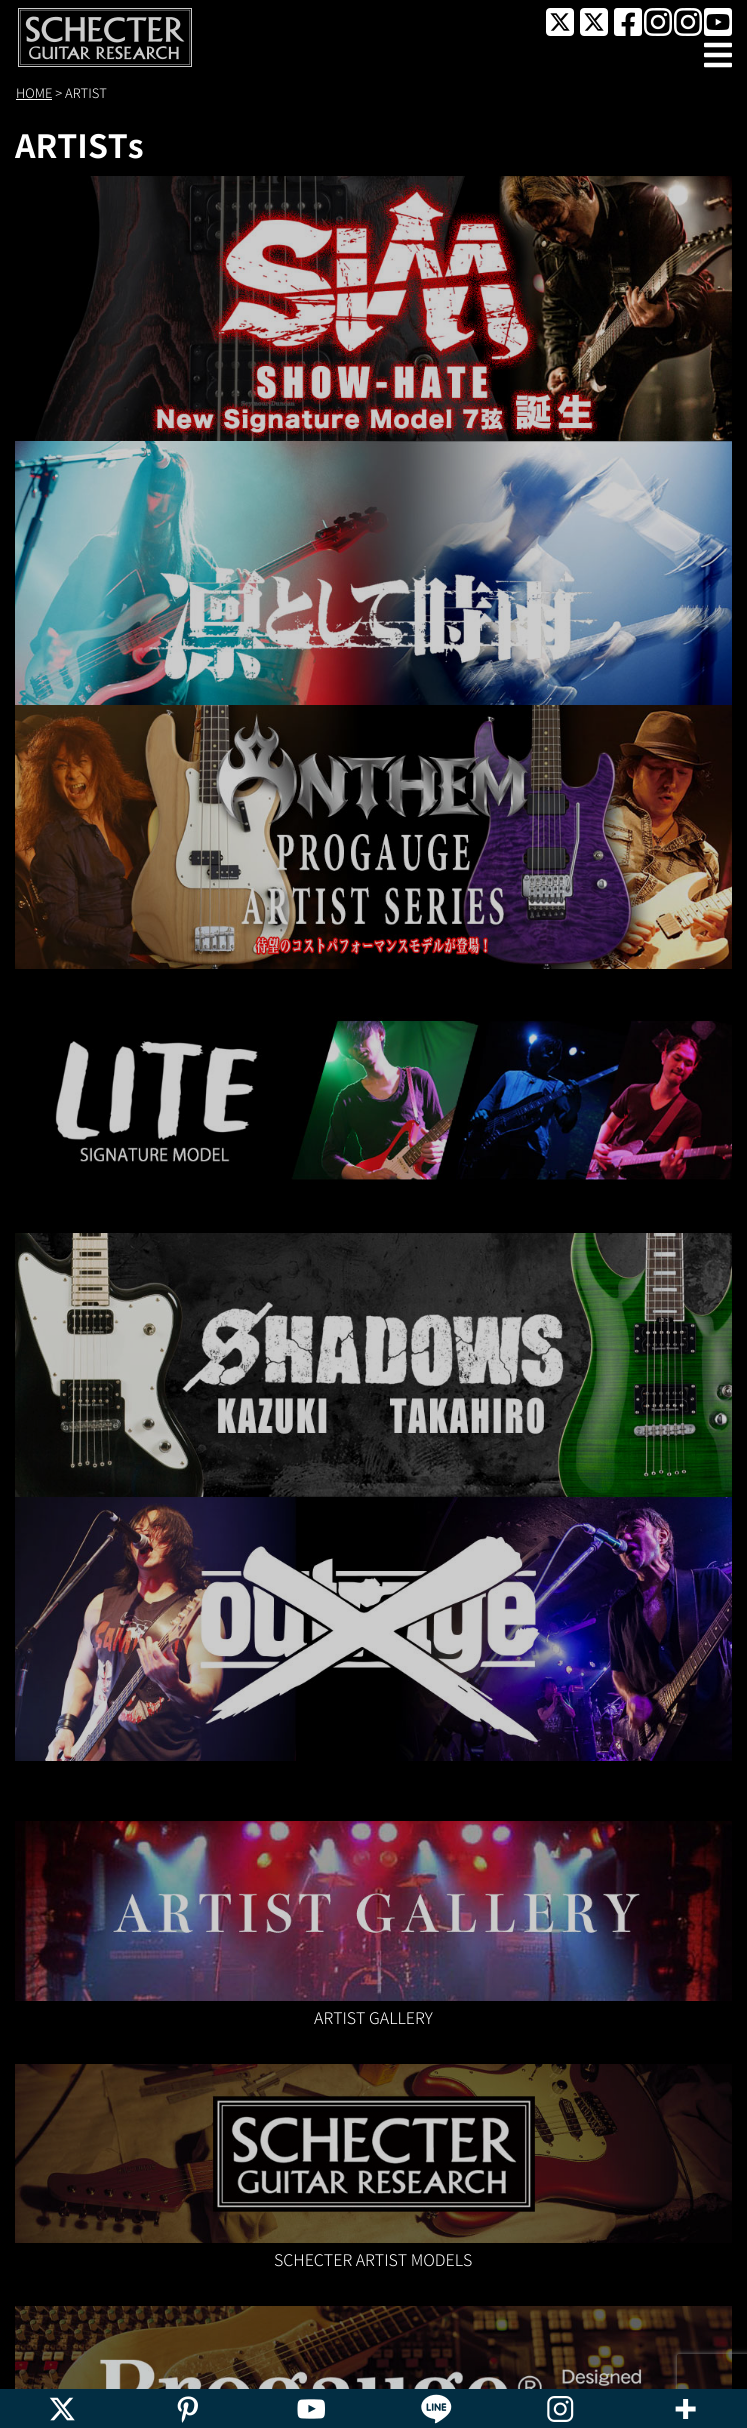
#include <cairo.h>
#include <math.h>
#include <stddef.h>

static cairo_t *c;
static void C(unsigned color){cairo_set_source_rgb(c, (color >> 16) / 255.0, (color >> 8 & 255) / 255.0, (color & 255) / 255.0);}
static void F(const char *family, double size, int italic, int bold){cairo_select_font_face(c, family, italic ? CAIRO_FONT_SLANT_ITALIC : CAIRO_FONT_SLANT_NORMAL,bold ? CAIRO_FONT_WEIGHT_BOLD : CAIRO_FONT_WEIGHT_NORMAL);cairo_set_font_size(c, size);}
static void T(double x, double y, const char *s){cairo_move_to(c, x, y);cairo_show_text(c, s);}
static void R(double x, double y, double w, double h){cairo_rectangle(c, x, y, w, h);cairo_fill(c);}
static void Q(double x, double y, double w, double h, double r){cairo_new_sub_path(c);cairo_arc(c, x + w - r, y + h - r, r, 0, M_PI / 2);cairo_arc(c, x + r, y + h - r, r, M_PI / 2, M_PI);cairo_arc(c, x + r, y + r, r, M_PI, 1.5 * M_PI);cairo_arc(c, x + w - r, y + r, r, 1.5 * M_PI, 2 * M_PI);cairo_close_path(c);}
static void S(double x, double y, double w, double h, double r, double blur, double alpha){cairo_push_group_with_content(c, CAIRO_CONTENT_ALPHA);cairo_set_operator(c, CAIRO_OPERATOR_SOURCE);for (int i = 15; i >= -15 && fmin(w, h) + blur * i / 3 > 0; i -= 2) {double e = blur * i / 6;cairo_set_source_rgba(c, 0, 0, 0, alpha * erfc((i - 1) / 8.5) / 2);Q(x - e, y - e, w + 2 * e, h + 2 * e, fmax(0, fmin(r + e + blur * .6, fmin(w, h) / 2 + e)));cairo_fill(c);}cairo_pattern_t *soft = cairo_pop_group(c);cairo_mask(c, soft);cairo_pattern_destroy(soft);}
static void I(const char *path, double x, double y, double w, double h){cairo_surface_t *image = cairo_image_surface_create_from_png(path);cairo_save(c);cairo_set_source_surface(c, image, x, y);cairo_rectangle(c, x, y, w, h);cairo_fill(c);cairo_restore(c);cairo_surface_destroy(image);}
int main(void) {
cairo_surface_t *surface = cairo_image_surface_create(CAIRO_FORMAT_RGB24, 747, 2428);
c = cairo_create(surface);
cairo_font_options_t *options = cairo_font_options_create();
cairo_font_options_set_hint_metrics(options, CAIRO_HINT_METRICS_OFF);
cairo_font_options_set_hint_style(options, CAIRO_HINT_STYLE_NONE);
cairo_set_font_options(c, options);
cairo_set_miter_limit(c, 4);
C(0x000000);
cairo_paint(c);
I("1.png",18,8,174,59);
I("2.png",546,8,28,28);
I("2.png",580,8,28,28);
I("3.png",614,8,28,28);
I("4.png",644,8,28,28);
I("4.png",674,8,28,28);
I("5.png",704,8,28,28);
I("6.png",704,42,28,26);
F("Noto Sans JP Light",13,0,0);
C(0xffffff);
T(16,98,"HOME > ARTIST");
R(16,99,36,1);
F("Noto Sans JP",32,0,1);
T(15,158,"ARTISTs");
I("7.png",35,176,697,265);
I("8.png",15,441,717,264);
I("9.png",15,705,717,264);
I("10.png",55,1017,677,163);
I("11.png",15,1233,717,264);
I("12.png",15,1497,717,264);
I("13.png",15,1821,717,180);
F("Noto Sans JP Light",16,0,0);
T(314,2024,"ARTIST GALLERY");
I("14.png",15,2064,717,179);
T(274,2266,"SCHECTER ARTIST MODELS");
I("15.png",15,2306,717,83);
cairo_save(c);
cairo_set_fill_rule(c,CAIRO_FILL_RULE_EVEN_ODD);
cairo_new_path(c);
cairo_move_to(c,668,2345);
cairo_line_to(c,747,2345);
cairo_line_to(c,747,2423);
cairo_line_to(c,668,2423);
cairo_close_path(c);
cairo_move_to(c,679,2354);
cairo_line_to(c,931,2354);
cairo_curve_to(c,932,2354,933,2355,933,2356);
cairo_line_to(c,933,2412);
cairo_curve_to(c,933,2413,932,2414,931,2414);
cairo_line_to(c,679,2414);
cairo_curve_to(c,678,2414,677,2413,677,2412);
cairo_line_to(c,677,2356);
cairo_curve_to(c,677,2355,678,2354,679,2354);
cairo_close_path(c);
cairo_clip(c);
C(0x808080);
S(677,2354,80,60,2,2.5,1);
cairo_restore(c);
C(0x022e43);
R(0,2389,747,39);
I("16.png",49,2397,26,24);
I("17.png",177,2396,21,27);
I("18.png",297,2399,28,20);
I("19.png",421,2394,31,30);
I("20.png",547,2396,27,26);
I("21.png",675,2399,21,20);
cairo_surface_write_to_png(surface, "o.png");
cairo_font_options_destroy(options);
cairo_destroy(c);
cairo_surface_destroy(surface);
return 0;
}
